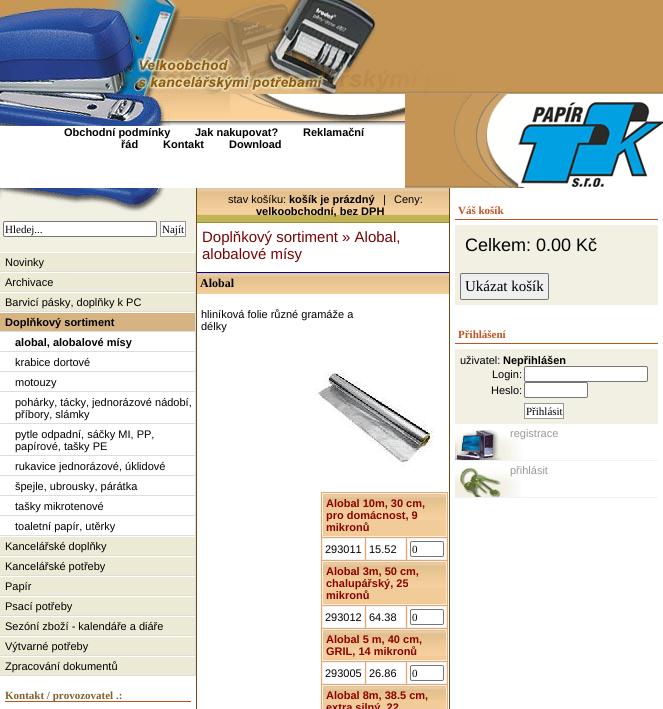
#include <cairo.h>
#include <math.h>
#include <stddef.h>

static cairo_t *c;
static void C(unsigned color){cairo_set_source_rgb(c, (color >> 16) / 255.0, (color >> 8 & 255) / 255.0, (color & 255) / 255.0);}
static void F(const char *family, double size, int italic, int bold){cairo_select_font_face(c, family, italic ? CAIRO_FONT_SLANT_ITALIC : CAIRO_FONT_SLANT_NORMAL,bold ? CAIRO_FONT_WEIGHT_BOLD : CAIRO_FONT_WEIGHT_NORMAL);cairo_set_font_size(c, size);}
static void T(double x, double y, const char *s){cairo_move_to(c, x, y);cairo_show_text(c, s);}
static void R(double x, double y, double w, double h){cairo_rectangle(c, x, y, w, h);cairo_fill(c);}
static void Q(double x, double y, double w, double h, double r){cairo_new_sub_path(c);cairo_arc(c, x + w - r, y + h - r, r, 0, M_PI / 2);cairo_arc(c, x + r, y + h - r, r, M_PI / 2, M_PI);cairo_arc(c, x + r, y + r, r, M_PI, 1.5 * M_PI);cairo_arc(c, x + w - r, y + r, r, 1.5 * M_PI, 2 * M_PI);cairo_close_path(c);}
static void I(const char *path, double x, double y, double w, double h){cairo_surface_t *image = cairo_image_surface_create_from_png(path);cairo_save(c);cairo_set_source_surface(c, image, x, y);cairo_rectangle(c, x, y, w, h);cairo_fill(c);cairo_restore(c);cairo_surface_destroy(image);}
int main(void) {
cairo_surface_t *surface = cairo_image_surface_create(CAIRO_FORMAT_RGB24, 663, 709);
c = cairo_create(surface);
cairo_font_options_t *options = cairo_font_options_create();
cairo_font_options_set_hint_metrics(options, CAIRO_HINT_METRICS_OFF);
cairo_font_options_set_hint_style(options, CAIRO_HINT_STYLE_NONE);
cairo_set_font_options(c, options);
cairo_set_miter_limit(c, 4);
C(0xffffff);
cairo_paint(c);
I("1.png",475,0,188,94);
I("2.png",0,0,475,94);
I("3.png",405,94,258,94);
I("4.png",170,94,60,32);
I("5.png",0,94,170,32);
I("6.png",230,94,175,32);
F("Liberation Sans",11,0,1);
C(0x000000);
T(64,136,"Obchodní podmínky");
T(195,136,"Jak nakupovat?");
T(303,136,"Reklamační");
T(121,148,"řád");
T(163,148,"Kontakt");
T(229,148,"Download");
C(0x724a13);
R(196,188,1,521);
C(0xf2f0e3);
R(0,188,196,64);
I("7.png",0,188,165,24);
C(0xffffff);
Q(3.5,221.5,153,15,1.5);
cairo_fill_preserve(c);
C(0x767676);
cairo_set_line_width(c,1);
cairo_stroke(c);
F("Liberation Serif",11,0,0);
C(0x000000);
T(5,233,"Hledej...");
C(0xffffff);
cairo_rectangle(c,160.5,221.5,25,15);
cairo_fill_preserve(c);
C(0x989898);
cairo_stroke(c);
C(0x000000);
T(162,233,"Najít");
C(0xece9d5);
R(0,253,195,18);
C(0xdddddd);
R(195,252,1,424);
R(0,271,196,1);
F("Liberation Sans",11,0,0);
C(0x000000);
T(5,266,"Novinky");
C(0xece9d5);
R(0,273,195,18);
C(0xdddddd);
R(0,291,196,1);
C(0x000000);
T(5,286,"Archivace");
C(0xece9d5);
R(0,293,195,18);
C(0xdddddd);
R(0,311,196,1);
C(0x000000);
T(5,306,"Barvicí pásky, doplňky k PC");
C(0xd6b380);
R(0,313,195,18);
C(0xdddddd);
R(0,331,196,1);
F("Liberation Sans",11,0,1);
C(0x000000);
T(5,326,"Doplňkový sortiment");
C(0xdddddd);
R(0,351,196,1);
C(0x000000);
T(15,346,"alobal, alobalové mísy");
C(0xdddddd);
R(0,371,196,1);
F("Liberation Sans",11,0,0);
C(0x000000);
T(15,366,"krabice dortové");
C(0xdddddd);
R(0,391,196,1);
C(0x000000);
T(15,386,"motouzy");
C(0xdddddd);
R(0,423,196,1);
C(0x000000);
T(15,406,"pohárky, tácky, jednorázové nádobí,");
T(15,418,"příbory, slámky");
C(0xdddddd);
R(0,455,196,1);
C(0x000000);
T(15,438,"pytle odpadní, sáčky MI, PP,");
T(15,450,"papírové, tašky PE");
C(0xdddddd);
R(0,475,196,1);
C(0x000000);
T(15,470,"rukavice jednorázové, úklidové");
C(0xdddddd);
R(0,495,196,1);
C(0x000000);
T(15,490,"špejle, ubrousky, párátka");
C(0xdddddd);
R(0,515,196,1);
C(0x000000);
T(15,510,"tašky mikrotenové");
C(0xdddddd);
R(0,535,196,1);
C(0x000000);
T(15,530,"toaletní papír, utěrky");
C(0xece9d5);
R(0,537,195,18);
C(0xdddddd);
R(0,555,196,1);
C(0x000000);
T(5,550,"Kancelářské doplňky");
C(0xece9d5);
R(0,557,195,18);
C(0xdddddd);
R(0,575,196,1);
C(0x000000);
T(5,570,"Kancelářské potřeby");
C(0xece9d5);
R(0,577,195,18);
C(0xdddddd);
R(0,595,196,1);
C(0x000000);
T(5,590,"Papír");
C(0xece9d5);
R(0,597,195,18);
C(0xdddddd);
R(0,615,196,1);
C(0x000000);
T(5,610,"Psací potřeby");
C(0xece9d5);
R(0,617,195,18);
C(0xdddddd);
R(0,635,196,1);
C(0x000000);
T(5,630,"Sezóní zboží - kalendáře a diáře");
C(0xece9d5);
R(0,637,195,18);
C(0xdddddd);
R(0,655,196,1);
C(0x000000);
T(5,650,"Výtvarné potřeby");
C(0xece9d5);
R(0,657,195,18);
C(0xdddddd);
R(0,675,196,1);
C(0x000000);
T(5,670,"Zpracování dokumentů");
C(0xc1531e);
R(5,701,186,1);
F("Liberation Serif",11,0,1);
C(0x84602c);
T(5,699,"Kontakt / provozovatel .:");
C(0xc2b456);
R(197,215,252,7);
I("8.png",197,188,252,27);
C(0x9d9034);
R(197,222,252,1);
F("Liberation Sans",11,0,0);
C(0x000000);
T(228,203,"stav košíku:");
F("Liberation Sans",11,0,1);
T(289,203,"košík je prázdný");
F("Liberation Sans",11,0,0);
T(383,203,"|");
T(394,203,"Ceny:");
F("Liberation Sans",11,0,1);
T(256,215,"velkoobchodní, bez DPH");
F("Liberation Sans",15,0,0);
C(0x780404);
T(202,242,"Doplňkový sortiment » Alobal,");
T(202,259,"alobalové mísy");
I("9.png",197,273,252,21);
C(0x000099);
R(197,272,252,1);
F("Liberation Serif",12,0,1);
C(0x000000);
T(200,287,"Alobal");
F("Liberation Sans",11,0,0);
T(201,318,"hliníková folie různé gramáže a");
T(201,330,"délky");
I("10.png",314,372,120,95);
C(0xf4a460);
R(321,492,127,217);
C(0xf1cc99);
R(323,520,123,16);
I("11.png",323,494,123,26);
cairo_rectangle(c,322.5,493.5,124,43);
C(0xf2f2f2);
cairo_stroke(c);
F("Liberation Sans",11,0,1);
C(0x8b0000);
T(326,507,"Alobal 10m, 30 cm,");
T(326,519,"pro domácnost, 9");
T(326,531,"mikronů");
C(0xffffff);
cairo_rectangle(c,322.5,538.5,42,21);
cairo_fill_preserve(c);
C(0xf2f2f2);
cairo_stroke(c);
F("Liberation Sans",11,0,0);
C(0x000000);
T(325,553,"293011");
C(0xffffff);
cairo_rectangle(c,366.5,538.5,39,21);
cairo_fill_preserve(c);
C(0xf2f2f2);
cairo_stroke(c);
C(0x000000);
T(369,553,"15.52");
C(0xffffff);
cairo_rectangle(c,407.5,538.5,39,21);
cairo_fill_preserve(c);
C(0xf2f2f2);
cairo_stroke(c);
Q(410.5,541.5,33,15,1.5);
C(0x767676);
cairo_stroke(c);
F("Liberation Serif",11,0,0);
C(0x000000);
T(412,553,"0");
C(0xf1cc99);
R(323,588,123,16);
I("11.png",323,562,123,26);
cairo_rectangle(c,322.5,561.5,124,43);
C(0xf2f2f2);
cairo_stroke(c);
F("Liberation Sans",11,0,1);
C(0x8b0000);
T(326,575,"Alobal 3m, 50 cm,");
T(326,587,"chalupářský, 25");
T(326,599,"mikronů");
C(0xffffff);
cairo_rectangle(c,322.5,606.5,42,21);
cairo_fill_preserve(c);
C(0xf2f2f2);
cairo_stroke(c);
F("Liberation Sans",11,0,0);
C(0x000000);
T(325,621,"293012");
C(0xffffff);
cairo_rectangle(c,366.5,606.5,39,21);
cairo_fill_preserve(c);
C(0xf2f2f2);
cairo_stroke(c);
C(0x000000);
T(369,621,"64.38");
C(0xffffff);
cairo_rectangle(c,407.5,606.5,39,21);
cairo_fill_preserve(c);
C(0xf2f2f2);
cairo_stroke(c);
Q(410.5,609.5,33,15,1.5);
C(0x767676);
cairo_stroke(c);
F("Liberation Serif",11,0,0);
C(0x000000);
T(412,621,"0");
C(0xf1cc99);
R(323,656,123,4);
I("11.png",323,630,123,26);
cairo_rectangle(c,322.5,629.5,124,31);
C(0xf2f2f2);
cairo_stroke(c);
F("Liberation Sans",11,0,1);
C(0x8b0000);
T(326,643,"Alobal 5 m, 40 cm,");
T(326,655,"GRIL, 14 mikronů");
C(0xffffff);
cairo_rectangle(c,322.5,662.5,42,21);
cairo_fill_preserve(c);
C(0xf2f2f2);
cairo_stroke(c);
F("Liberation Sans",11,0,0);
C(0x000000);
T(325,677,"293005");
C(0xffffff);
cairo_rectangle(c,366.5,662.5,39,21);
cairo_fill_preserve(c);
C(0xf2f2f2);
cairo_stroke(c);
C(0x000000);
T(369,677,"26.86");
C(0xffffff);
cairo_rectangle(c,407.5,662.5,39,21);
cairo_fill_preserve(c);
C(0xf2f2f2);
cairo_stroke(c);
Q(410.5,665.5,33,15,1.5);
C(0x767676);
cairo_stroke(c);
F("Liberation Serif",11,0,0);
C(0x000000);
T(412,677,"0");
C(0xf1cc99);
R(323,700,123,9);
I("12.png",323,686,123,14);
cairo_rectangle(c,322.5,685.5,124,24);
C(0xf2f2f2);
cairo_stroke(c);
F("Liberation Sans",11,0,1);
C(0x8b0000);
T(326,699,"Alobal 8m, 38.5 cm,");
T(326,711,"extra silný, 22");
C(0x724a13);
R(449,188,1,521);
C(0xc1531e);
R(455,219,203,1);
F("Liberation Serif",11,0,1);
T(458,214,"Váš košík");
C(0xf2f0e3);
R(455,225,203,80);
F("Liberation Sans",18,0,0);
C(0x000000);
T(465,251,"Celkem: 0.00 Kč");
C(0xefefef);
Q(460.5,273.5,88,26,1.5);
cairo_fill_preserve(c);
C(0x767676);
cairo_stroke(c);
F("Liberation Serif",15,0,0);
C(0x000000);
T(465,291,"Ukázat košík");
C(0xc1531e);
R(455,343,203,1);
F("Liberation Serif",11,0,1);
T(458,338,"Přihlášení");
C(0xf2f0e3);
R(455,349,203,75);
F("Liberation Sans",11,0,0);
C(0x000000);
T(460,364,"uživatel:");
F("Liberation Sans",11,0,1);
T(503,364,"Nepřihlášen");
F("Liberation Sans",11,0,0);
T(492,378,"Login:");
C(0xffffff);
Q(524.5,366.5,123,15,1.5);
cairo_fill_preserve(c);
C(0x767676);
cairo_stroke(c);
C(0x000000);
T(491,394,"Heslo:");
C(0xffffff);
Q(524.5,382.5,63,15,1.5);
cairo_fill_preserve(c);
C(0x767676);
cairo_stroke(c);
C(0xffffff);
cairo_rectangle(c,524.5,403.5,39,15);
cairo_fill_preserve(c);
C(0x989898);
cairo_stroke(c);
F("Liberation Serif",11,0,0);
C(0x000000);
T(526,415,"Přihlásit");
I("13.png",455,430,67,30);
C(0xf2f2f2);
R(455,460,203,1);
F("Liberation Sans",11,0,0);
C(0x989898);
T(510,437,"registrace");
I("14.png",455,468,66,29);
C(0xf2f2f2);
R(455,497,203,1);
C(0x989898);
T(510,474,"přihlásit");
cairo_surface_write_to_png(surface, "o.png");
cairo_font_options_destroy(options);
cairo_destroy(c);
cairo_surface_destroy(surface);
return 0;
}
